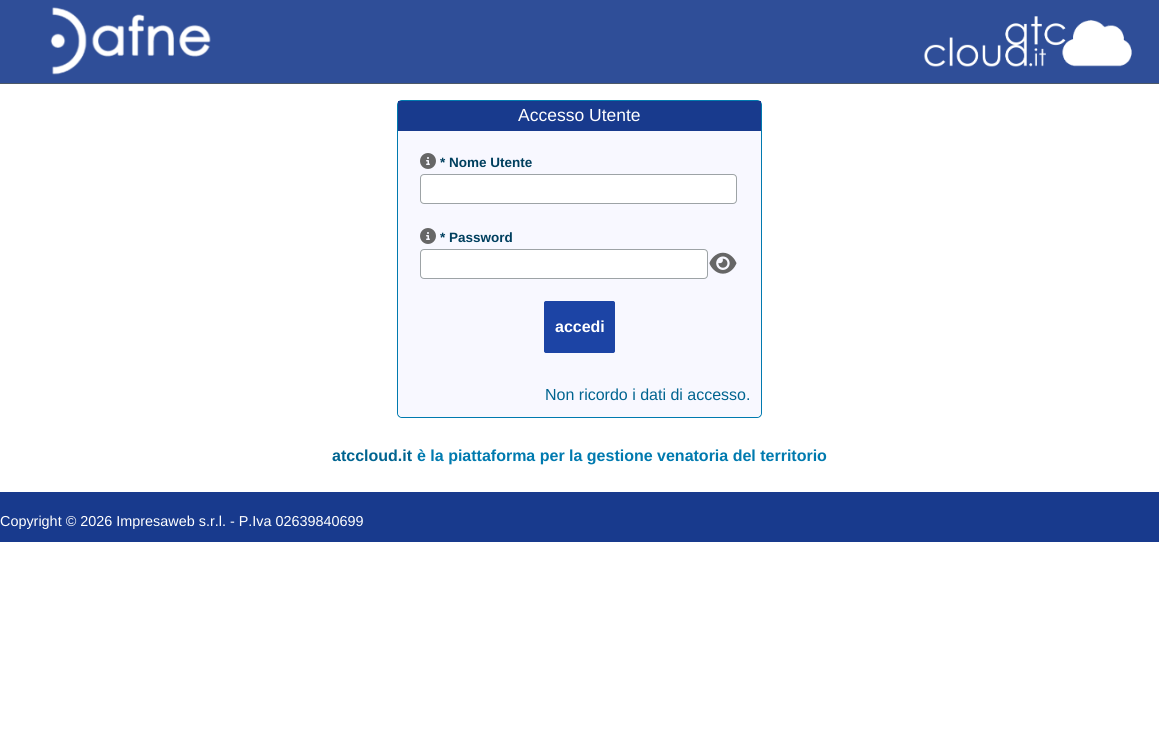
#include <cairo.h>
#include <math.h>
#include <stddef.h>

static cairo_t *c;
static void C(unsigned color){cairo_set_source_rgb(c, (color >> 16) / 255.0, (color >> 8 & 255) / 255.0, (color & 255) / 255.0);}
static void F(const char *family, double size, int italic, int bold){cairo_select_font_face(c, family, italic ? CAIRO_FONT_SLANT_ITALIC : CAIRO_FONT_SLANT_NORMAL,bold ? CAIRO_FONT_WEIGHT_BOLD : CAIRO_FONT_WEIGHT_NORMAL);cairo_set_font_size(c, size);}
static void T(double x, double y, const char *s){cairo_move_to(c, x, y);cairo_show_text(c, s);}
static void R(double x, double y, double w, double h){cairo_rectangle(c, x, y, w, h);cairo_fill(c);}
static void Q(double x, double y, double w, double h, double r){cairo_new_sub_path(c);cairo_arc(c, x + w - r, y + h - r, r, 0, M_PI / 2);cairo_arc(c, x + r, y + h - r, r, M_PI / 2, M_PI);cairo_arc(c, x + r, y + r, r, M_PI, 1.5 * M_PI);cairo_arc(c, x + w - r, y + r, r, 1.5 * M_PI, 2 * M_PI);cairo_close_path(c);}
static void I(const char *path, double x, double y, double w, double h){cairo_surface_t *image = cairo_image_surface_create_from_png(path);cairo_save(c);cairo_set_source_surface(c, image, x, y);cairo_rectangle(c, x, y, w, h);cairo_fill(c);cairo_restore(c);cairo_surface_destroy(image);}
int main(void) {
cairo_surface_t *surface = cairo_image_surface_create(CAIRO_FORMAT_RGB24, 1159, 733);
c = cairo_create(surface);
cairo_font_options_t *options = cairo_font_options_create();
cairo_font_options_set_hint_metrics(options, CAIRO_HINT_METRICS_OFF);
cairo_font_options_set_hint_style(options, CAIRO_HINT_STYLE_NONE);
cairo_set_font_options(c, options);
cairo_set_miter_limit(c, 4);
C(0xffffff);
cairo_paint(c);
C(0x2f4e98);
R(0,0,1159,83);
C(0x4d5967);
R(0,83,1159,1);
I("1.png",50,7,161,68);
I("2.png",923,16,209,51);
Q(397.5,100.5,364,317,4.5);
C(0x007aaf);
cairo_set_line_width(c,1);
cairo_stroke(c);
C(0x183a8d);
R(398,101,363,30);
F("Liberation Sans",17.5,0,0);
C(0xffffff);
T(518,121,"Accesso Utente");
C(0xf8f8ff);
cairo_new_path(c);
cairo_move_to(c,398,131);
cairo_line_to(c,761,131);
cairo_line_to(c,761,412);
cairo_curve_to(c,761,415,759,417,756,417);
cairo_line_to(c,403,417);
cairo_curve_to(c,400,417,398,415,398,412);
cairo_close_path(c);
cairo_fill(c);
I("3.png",420,153,16,16);
F("Liberation Sans",13.5,0,1);
C(0x003f5e);
T(440,167,"* Nome Utente");
C(0xffffff);
Q(420.5,174.5,316,29,3.5);
cairo_fill_preserve(c);
C(0x9da3a6);
cairo_stroke(c);
I("3.png",420,228,16,16);
C(0x003f5e);
T(440,242,"* Password");
C(0xffffff);
Q(420.5,249.5,287,29,3.5);
cairo_fill_preserve(c);
C(0x9da3a6);
cairo_stroke(c);
I("4.png",709,252,28,22);
C(0x1c44a5);
Q(544.5,301.5,70,51,1.5);
cairo_fill_preserve(c);
cairo_stroke(c);
F("Liberation Sans",16,0,1);
C(0xffffff);
T(555,332,"accedi");
F("Liberation Sans",16,0,0);
C(0x006490);
T(545,400,"Non ricordo i dati di accesso.");
F("Liberation Sans",16,0,1);
T(332,461,"atccloud.it");
C(0x007aaf);
T(417,461,"è la piattaforma per la gestione venatoria del territorio");
C(0x183a8d);
R(0,492,1159,50);
F("Liberation Sans",14.4,0,0);
C(0xffffff);
T(0,526,"Copyright © 2026 Impresaweb s.r.l. - P.Iva 02639840699");
cairo_surface_write_to_png(surface, "o.png");
cairo_font_options_destroy(options);
cairo_destroy(c);
cairo_surface_destroy(surface);
return 0;
}
